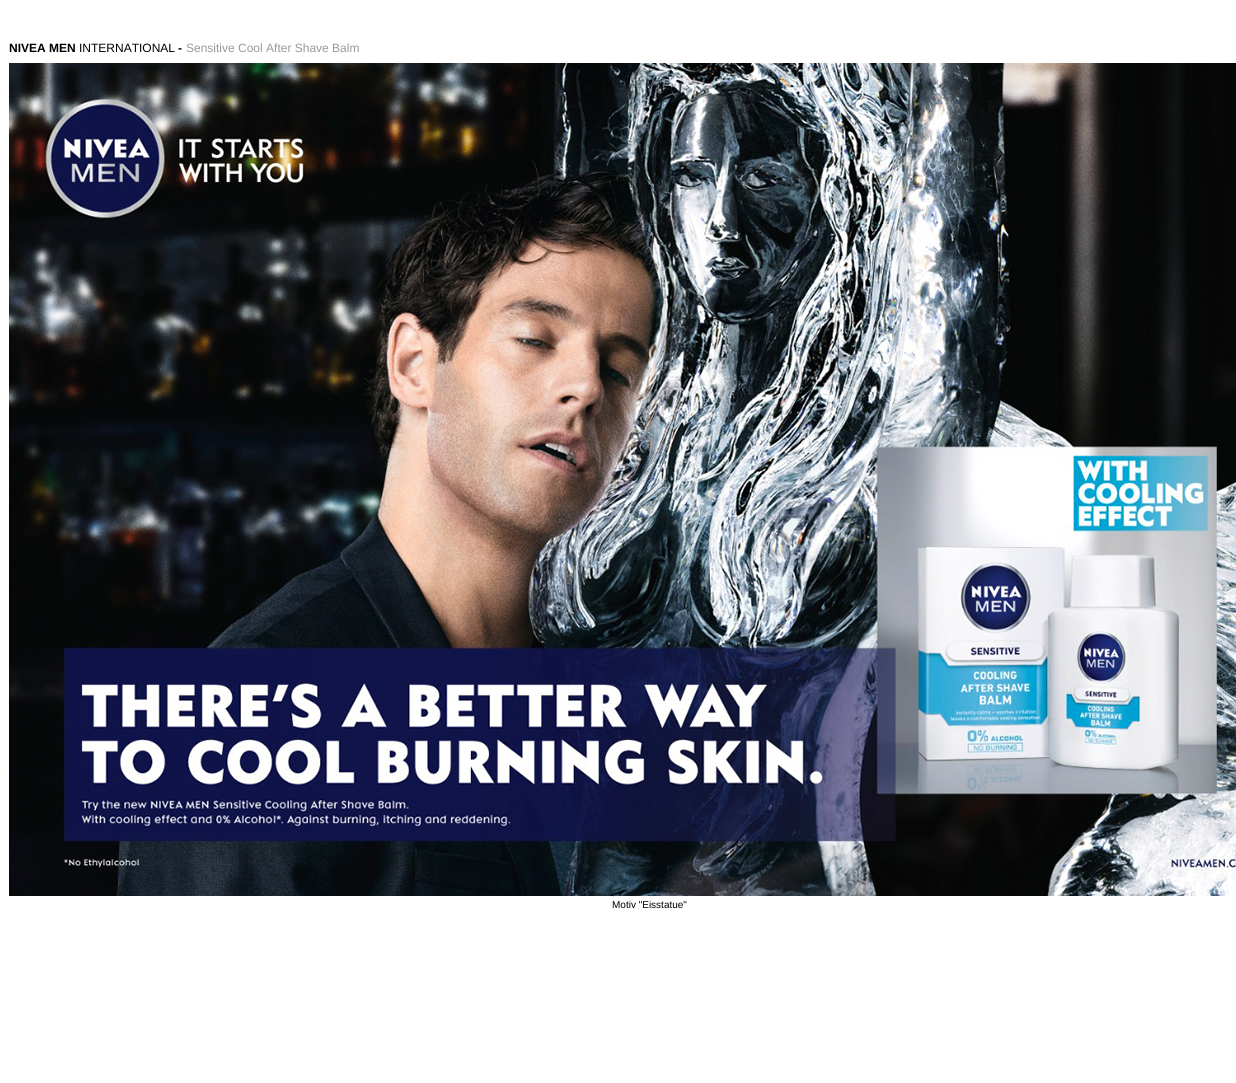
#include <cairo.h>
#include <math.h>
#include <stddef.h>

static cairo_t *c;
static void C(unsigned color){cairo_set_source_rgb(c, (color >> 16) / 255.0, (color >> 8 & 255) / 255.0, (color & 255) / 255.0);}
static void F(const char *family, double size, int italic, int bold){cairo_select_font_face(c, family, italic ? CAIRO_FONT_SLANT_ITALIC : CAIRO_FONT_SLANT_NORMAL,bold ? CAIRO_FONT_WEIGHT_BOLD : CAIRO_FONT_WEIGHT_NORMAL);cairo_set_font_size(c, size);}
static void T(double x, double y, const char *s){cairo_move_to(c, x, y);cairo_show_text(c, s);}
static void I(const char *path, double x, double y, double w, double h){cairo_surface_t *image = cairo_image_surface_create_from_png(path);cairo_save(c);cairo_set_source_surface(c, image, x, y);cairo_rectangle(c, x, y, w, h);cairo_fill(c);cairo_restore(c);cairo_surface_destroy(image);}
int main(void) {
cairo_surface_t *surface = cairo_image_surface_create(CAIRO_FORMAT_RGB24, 1236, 1083);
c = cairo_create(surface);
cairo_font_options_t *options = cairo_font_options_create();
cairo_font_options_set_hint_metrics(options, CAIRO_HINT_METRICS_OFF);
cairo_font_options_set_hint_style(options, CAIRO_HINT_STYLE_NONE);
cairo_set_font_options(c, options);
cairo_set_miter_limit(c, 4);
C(0xffffff);
cairo_paint(c);
F("Liberation Sans",12,0,1);
C(0x000000);
T(9,52,"NIVEA MEN");
F("Liberation Sans",12,0,0);
T(79,52,"INTERNATIONAL");
F("Liberation Sans",12,0,1);
T(178,52,"-");
F("Liberation Sans",12,0,0);
C(0x999999);
T(186,52,"Sensitive Cool After Shave Balm");
I("1.png",9,63,1227,833);
F("Liberation Sans",10,0,0);
C(0x000000);
T(612,908,"Motiv \"Eisstatue\"");
cairo_surface_write_to_png(surface, "o.png");
cairo_font_options_destroy(options);
cairo_destroy(c);
cairo_surface_destroy(surface);
return 0;
}
